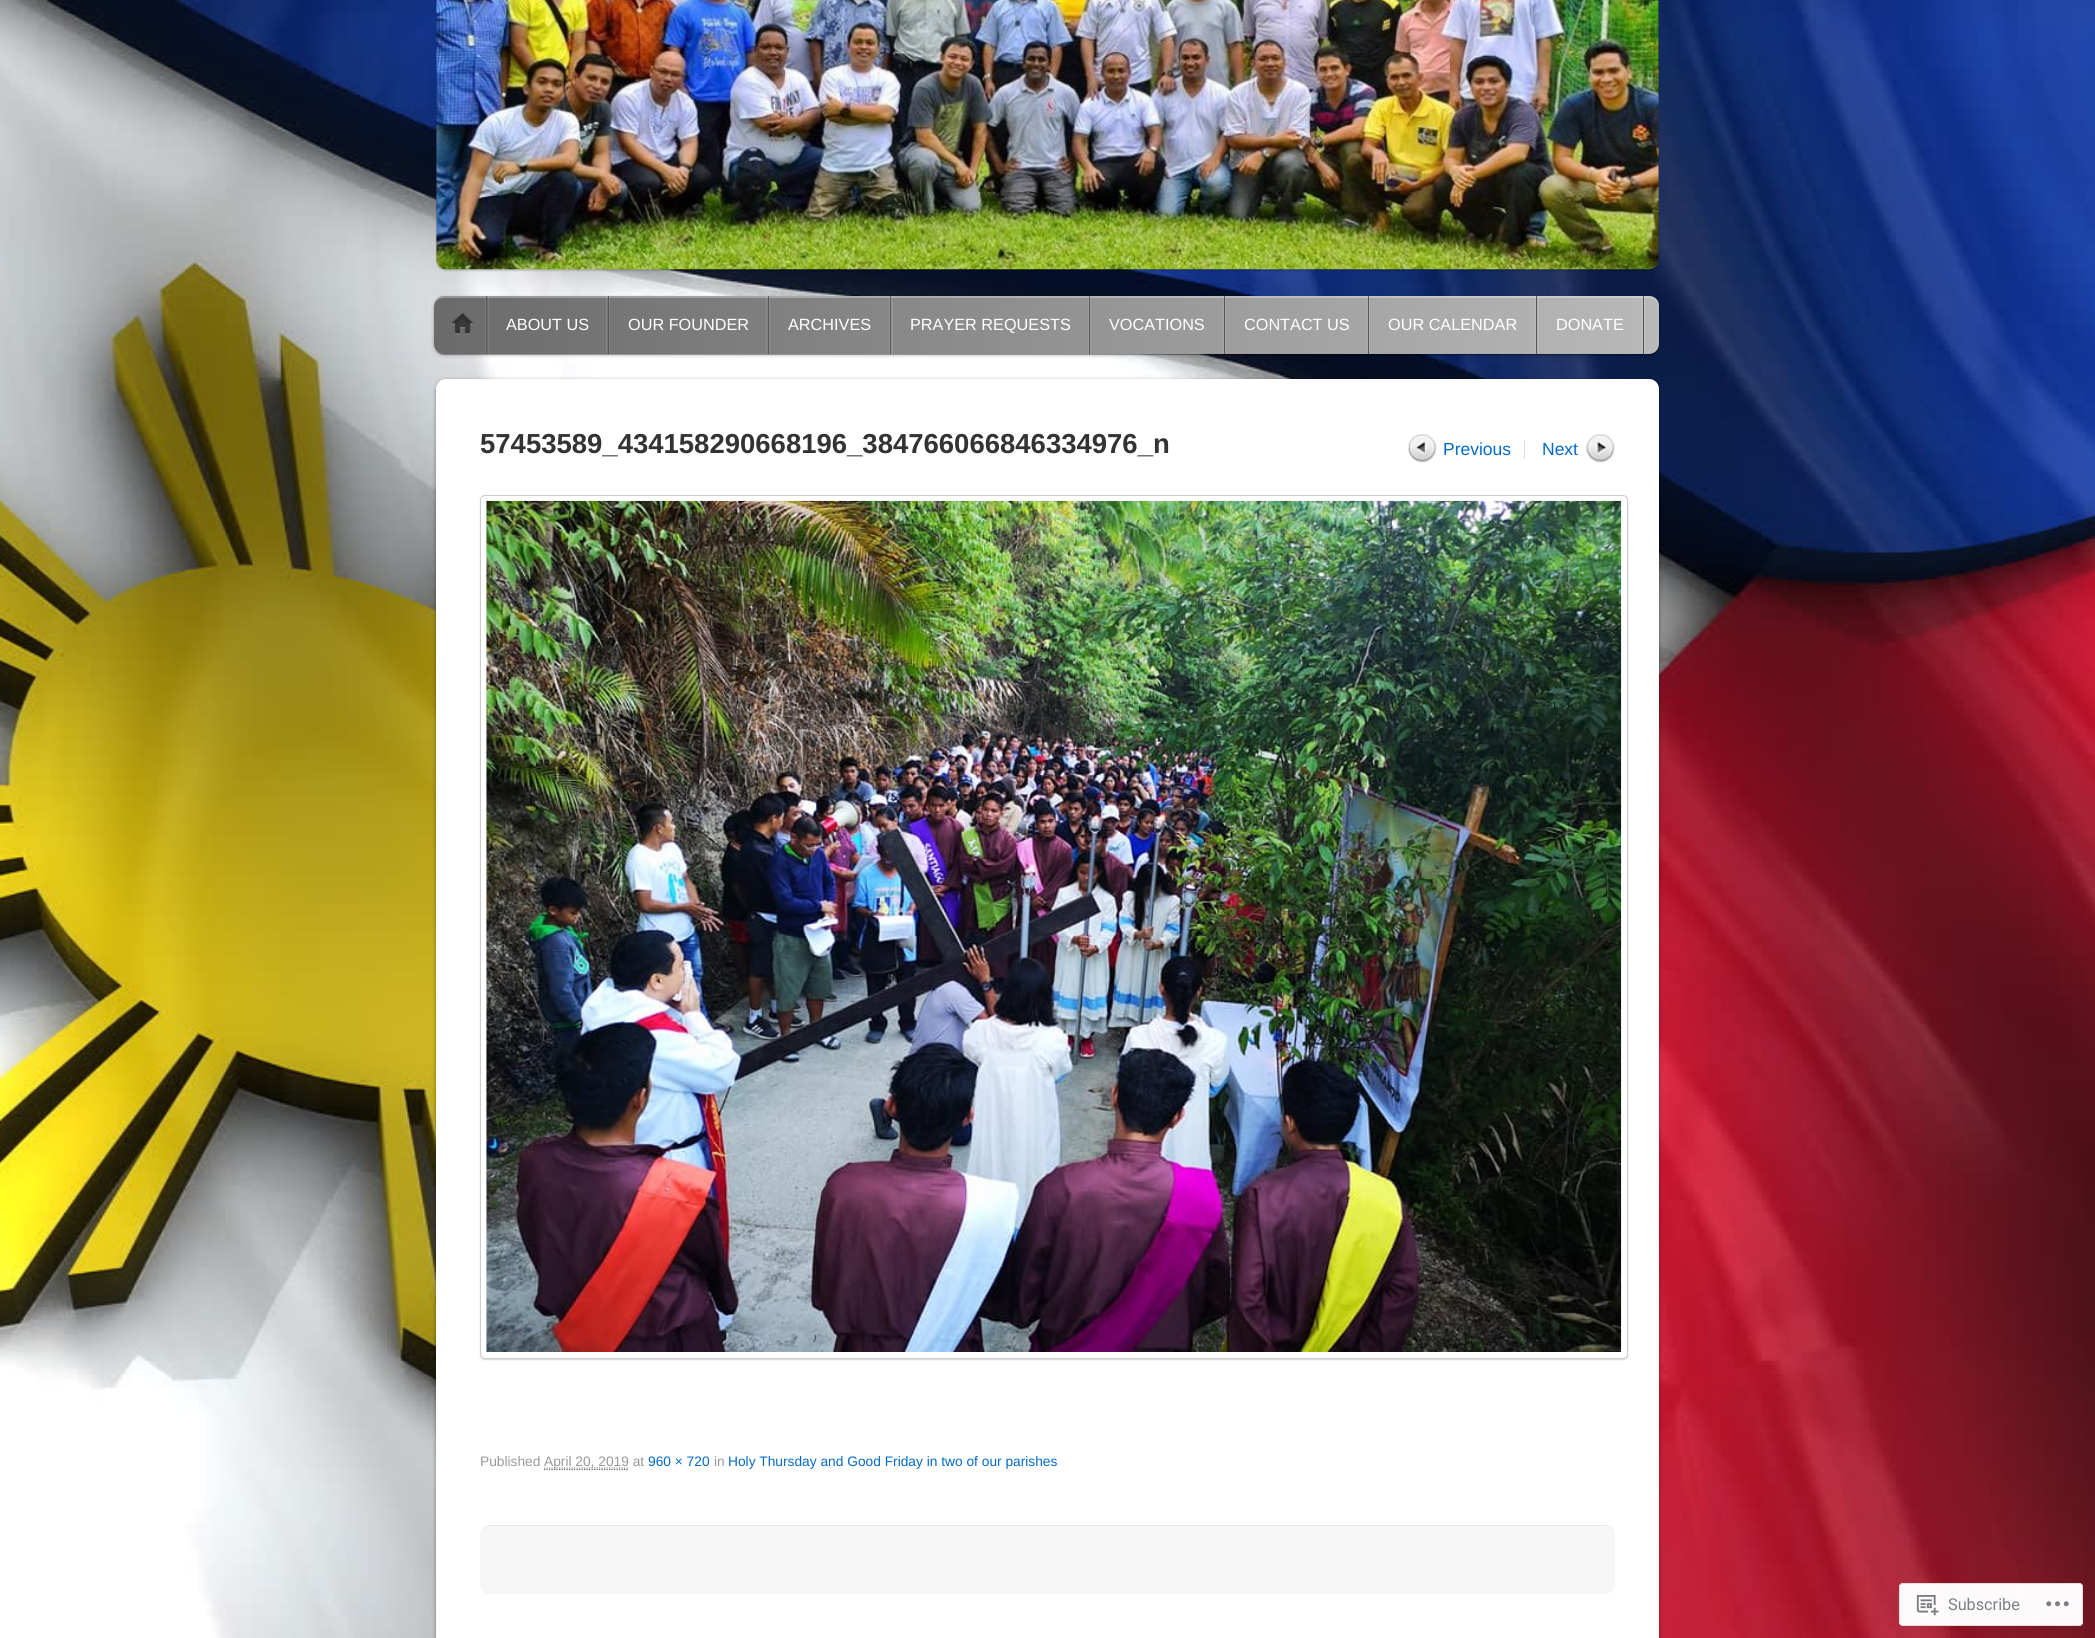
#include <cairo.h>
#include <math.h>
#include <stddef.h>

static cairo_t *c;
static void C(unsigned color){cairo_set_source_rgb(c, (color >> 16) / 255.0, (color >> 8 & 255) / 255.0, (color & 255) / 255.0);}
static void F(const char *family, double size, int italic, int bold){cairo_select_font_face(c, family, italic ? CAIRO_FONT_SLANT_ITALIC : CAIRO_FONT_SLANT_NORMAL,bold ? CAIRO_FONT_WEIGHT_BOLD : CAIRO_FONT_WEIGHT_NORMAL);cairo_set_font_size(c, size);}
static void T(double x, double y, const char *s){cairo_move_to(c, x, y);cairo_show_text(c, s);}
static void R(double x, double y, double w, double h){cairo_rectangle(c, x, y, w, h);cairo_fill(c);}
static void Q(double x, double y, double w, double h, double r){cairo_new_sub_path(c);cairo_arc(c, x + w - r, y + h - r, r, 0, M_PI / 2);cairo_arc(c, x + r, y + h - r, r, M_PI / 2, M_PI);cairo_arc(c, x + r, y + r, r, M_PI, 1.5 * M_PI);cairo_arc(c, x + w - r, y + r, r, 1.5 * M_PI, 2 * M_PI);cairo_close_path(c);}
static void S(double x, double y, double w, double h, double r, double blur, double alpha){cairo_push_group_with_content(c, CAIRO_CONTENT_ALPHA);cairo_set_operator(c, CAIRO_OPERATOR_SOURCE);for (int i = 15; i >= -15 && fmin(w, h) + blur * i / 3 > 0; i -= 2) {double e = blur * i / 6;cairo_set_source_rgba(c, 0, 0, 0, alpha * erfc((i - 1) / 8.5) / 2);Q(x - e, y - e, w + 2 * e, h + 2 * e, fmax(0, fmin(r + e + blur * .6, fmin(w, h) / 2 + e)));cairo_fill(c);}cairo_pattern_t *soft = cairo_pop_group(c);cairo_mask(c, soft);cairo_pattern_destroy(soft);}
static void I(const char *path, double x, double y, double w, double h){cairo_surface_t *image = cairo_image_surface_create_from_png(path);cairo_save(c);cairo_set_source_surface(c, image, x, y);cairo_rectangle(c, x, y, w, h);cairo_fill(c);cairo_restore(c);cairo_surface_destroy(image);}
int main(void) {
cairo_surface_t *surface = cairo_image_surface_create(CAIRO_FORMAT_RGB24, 2095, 1638);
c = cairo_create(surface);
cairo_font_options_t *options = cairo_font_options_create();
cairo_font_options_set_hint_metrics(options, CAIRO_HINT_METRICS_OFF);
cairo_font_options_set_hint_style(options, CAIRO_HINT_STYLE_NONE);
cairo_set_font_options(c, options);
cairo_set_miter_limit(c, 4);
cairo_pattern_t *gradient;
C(0xffffff);
cairo_paint(c);
I("1.png",0,0,2095,1638);
C(0x000000);
S(436,-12,1223,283,10,.5,.15);
I("2.png",436,0,1223,270);
S(434,298,1225,57,10,2,.3);
cairo_set_source_rgba(c,0,0,0,0.3);
cairo_new_path(c);
cairo_move_to(c,434,346);
cairo_curve_to(c,435,351,439,355,444,355);
cairo_line_to(c,1649,355);
cairo_curve_to(c,1655,355,1659,351,1659,345);
cairo_line_to(c,1659,306);
cairo_line_to(c,1659,344);
cairo_curve_to(c,1659,349,1654,354,1649,354);
cairo_line_to(c,444,354);
cairo_curve_to(c,439,354,435,351,434,346);
cairo_close_path(c);
cairo_fill(c);
gradient = cairo_pattern_create_linear(1659,325,434,325);
cairo_pattern_add_color_stop_rgba(gradient,0,0.725,0.725,0.725,1);
cairo_pattern_add_color_stop_rgba(gradient,1,0.416,0.416,0.416,1);
cairo_set_source(c,gradient);
cairo_pattern_destroy(gradient);
Q(434,296,1225,58,10);
cairo_fill(c);
cairo_set_source_rgba(c,1,1,1,0.3);
cairo_new_path(c);
cairo_move_to(c,444,298);
cairo_line_to(c,1649,298);
cairo_curve_to(c,1654,298,1659,302,1659,308);
cairo_line_to(c,1659,306);
cairo_curve_to(c,1659,300,1655,296,1649,296);
cairo_line_to(c,444,296);
cairo_curve_to(c,438,296,434,300,434,306);
cairo_line_to(c,434,308);
cairo_curve_to(c,434,302,438,298,444,298);
cairo_close_path(c);
cairo_fill(c);
cairo_set_source_rgba(c,1,1,1,0.1);
cairo_new_path(c);
cairo_move_to(c,445,296);
cairo_line_to(c,442,296);
cairo_line_to(c,488,296);
cairo_line_to(c,488,354);
cairo_line_to(c,442,354);
cairo_line_to(c,489,354);
cairo_line_to(c,489,296);
cairo_close_path(c);
cairo_fill(c);
R(485,296,1,58);
C(0x575757);
R(486,296,1,58);
I("3.png",451,313,23,22);
cairo_set_source_rgba(c,1,1,1,0.1);
cairo_new_path(c);
cairo_move_to(c,489,296);
cairo_line_to(c,609,296);
cairo_line_to(c,609,354);
cairo_line_to(c,489,354);
cairo_line_to(c,610,354);
cairo_line_to(c,610,296);
cairo_close_path(c);
cairo_fill(c);
R(606,296,1,58);
C(0x575757);
R(608,296,1,58);
F("Liberation Sans",16.25,0,0);
C(0xffffff);
T(506,330,"ABOUT US");
cairo_set_source_rgba(c,1,1,1,0.1);
cairo_new_path(c);
cairo_move_to(c,610,296);
cairo_line_to(c,769,296);
cairo_line_to(c,769,354);
cairo_line_to(c,610,354);
cairo_line_to(c,770,354);
cairo_line_to(c,770,296);
cairo_close_path(c);
cairo_fill(c);
R(766,296,1,58);
C(0x575757);
R(768,296,1,58);
C(0xffffff);
T(628,330,"OUR FOUNDER");
cairo_set_source_rgba(c,1,1,1,0.1);
cairo_new_path(c);
cairo_move_to(c,770,296);
cairo_line_to(c,891,296);
cairo_line_to(c,891,354);
cairo_line_to(c,770,354);
cairo_line_to(c,893,354);
cairo_line_to(c,893,296);
cairo_close_path(c);
cairo_fill(c);
R(889,296,1,58);
C(0x575757);
R(890,296,1,58);
C(0xffffff);
T(788,330,"ARCHIVES");
cairo_set_source_rgba(c,1,1,1,0.1);
cairo_new_path(c);
cairo_move_to(c,893,296);
cairo_line_to(c,1090,296);
cairo_line_to(c,1090,354);
cairo_line_to(c,893,354);
cairo_line_to(c,1091,354);
cairo_line_to(c,1091,296);
cairo_close_path(c);
cairo_fill(c);
R(1088,296,1,58);
C(0x575757);
R(1089,296,1,58);
C(0xffffff);
T(910,330,"PRAYER REQUESTS");
cairo_set_source_rgba(c,1,1,1,0.1);
cairo_new_path(c);
cairo_move_to(c,1091,296);
cairo_line_to(c,1225,296);
cairo_line_to(c,1225,354);
cairo_line_to(c,1091,354);
cairo_line_to(c,1226,354);
cairo_line_to(c,1226,296);
cairo_close_path(c);
cairo_fill(c);
R(1223,296,1,58);
C(0x575757);
R(1224,296,1,58);
C(0xffffff);
T(1109,330,"VOCATIONS");
cairo_set_source_rgba(c,1,1,1,0.1);
cairo_new_path(c);
cairo_move_to(c,1226,296);
cairo_line_to(c,1369,296);
cairo_line_to(c,1369,354);
cairo_line_to(c,1226,354);
cairo_line_to(c,1370,354);
cairo_line_to(c,1370,296);
cairo_close_path(c);
cairo_fill(c);
R(1366,296,1,58);
C(0x575757);
R(1368,296,1,58);
C(0xffffff);
T(1244,330,"CONTACT US");
cairo_set_source_rgba(c,1,1,1,0.1);
cairo_new_path(c);
cairo_move_to(c,1370,296);
cairo_line_to(c,1538,296);
cairo_line_to(c,1538,354);
cairo_line_to(c,1370,354);
cairo_line_to(c,1539,354);
cairo_line_to(c,1539,296);
cairo_close_path(c);
cairo_fill(c);
R(1535,296,1,58);
C(0x575757);
R(1536,296,1,58);
C(0xffffff);
T(1388,330,"OUR CALENDAR");
cairo_set_source_rgba(c,1,1,1,0.1);
cairo_new_path(c);
cairo_move_to(c,1539,296);
cairo_line_to(c,1644,296);
cairo_line_to(c,1644,354);
cairo_line_to(c,1539,354);
cairo_line_to(c,1645,354);
cairo_line_to(c,1645,296);
cairo_close_path(c);
cairo_fill(c);
R(1641,296,1,58);
C(0x575757);
R(1643,296,1,58);
C(0xffffff);
T(1556,330,"DONATE");
C(0x000000);
S(436,380,1223,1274,10,2,.4);
C(0xffffff);
Q(436,379,1223,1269,10);
cairo_fill(c);
F("Liberation Sans",27.5,0,1);
C(0x333333);
T(480,453,"57453589_434158290668196_384766066846334976_n");
I("4.png",1407,434,30,29);
F("Liberation Sans",17.5,0,0);
C(0x026acb);
T(1443,455,"Previous");
C(0xdddddd);
R(1524,440,1,19);
I("5.png",1586,434,29,29);
C(0x026acb);
T(1542,455,"Next");
C(0x000000);
S(480,496,1148,864,5,.5,.15);
C(0xffffff);
Q(480.5,495.5,1147,863,4.5);
cairo_fill_preserve(c);
C(0xcccccc);
cairo_set_line_width(c,1);
cairo_stroke(c);
I("6.png",486,500,1136,852);
F("Liberation Sans",13.75,0,0);
C(0x999999);
T(480,1466,"Published");
cairo_new_path(c);
cairo_move_to(c,544,1469.5);
cairo_line_to(c,629,1469.5);
C(0x666666);
cairo_set_line_width(c,1.2);
cairo_set_dash(c,(double[]){1.25,1.25},2,0);
cairo_stroke(c);
cairo_new_path(c);
cairo_move_to(c,544,1468);
cairo_line_to(c,629,1468);
C(0x999999);
cairo_stroke(c);
T(544,1466,"April 20, 2019 at");
C(0x026acb);
T(648,1466,"960 × 720");
C(0x999999);
T(714,1466,"in");
C(0x026acb);
T(728,1466,"Holy Thursday and Good Friday in two of our parishes");
C(0xe6e6e6);
cairo_new_path(c);
cairo_move_to(c,490,1525);
cairo_curve_to(c,484,1525,480,1530,480,1536);
cairo_curve_to(c,480,1531,484,1526,490,1526);
cairo_line_to(c,1605,1526);
cairo_curve_to(c,1611,1526,1615,1531,1615,1536);
cairo_curve_to(c,1615,1530,1611,1525,1605,1525);
cairo_close_path(c);
cairo_fill(c);
C(0xf6f6f6);
Q(480,1526,1135,68,10);
cairo_fill(c);
cairo_set_source_rgba(c,1,1,1,0.98);
Q(1899,1583,184,43,4);
cairo_fill(c);
Q(1899.5,1583.5,183,42,3.5);
cairo_set_source_rgba(c,0.863,0.863,0.871,0.98);
cairo_set_line_width(c,1);
cairo_set_dash(c,NULL,0,0);
cairo_stroke(c);
I("7.png",1916,1595,23,21);
F("Roboto",16.25,0,0);
C(0x7b7f84);
T(1948,1610,"Subscribe");
I("8.png",2046,1601,23,6);
cairo_surface_write_to_png(surface, "o.png");
cairo_font_options_destroy(options);
cairo_destroy(c);
cairo_surface_destroy(surface);
return 0;
}
